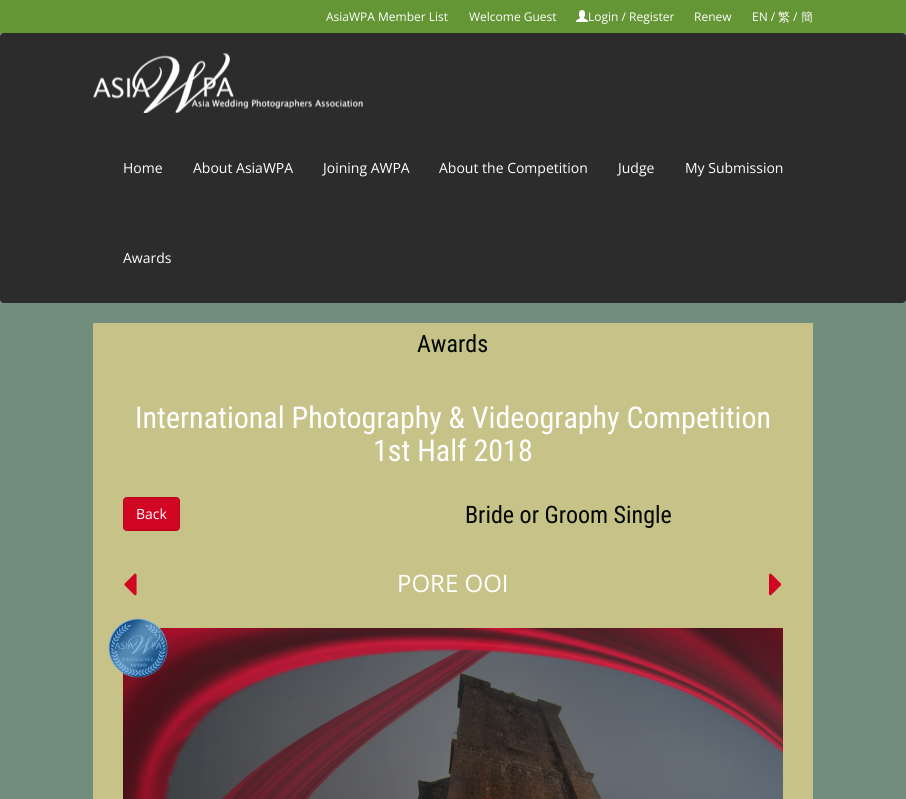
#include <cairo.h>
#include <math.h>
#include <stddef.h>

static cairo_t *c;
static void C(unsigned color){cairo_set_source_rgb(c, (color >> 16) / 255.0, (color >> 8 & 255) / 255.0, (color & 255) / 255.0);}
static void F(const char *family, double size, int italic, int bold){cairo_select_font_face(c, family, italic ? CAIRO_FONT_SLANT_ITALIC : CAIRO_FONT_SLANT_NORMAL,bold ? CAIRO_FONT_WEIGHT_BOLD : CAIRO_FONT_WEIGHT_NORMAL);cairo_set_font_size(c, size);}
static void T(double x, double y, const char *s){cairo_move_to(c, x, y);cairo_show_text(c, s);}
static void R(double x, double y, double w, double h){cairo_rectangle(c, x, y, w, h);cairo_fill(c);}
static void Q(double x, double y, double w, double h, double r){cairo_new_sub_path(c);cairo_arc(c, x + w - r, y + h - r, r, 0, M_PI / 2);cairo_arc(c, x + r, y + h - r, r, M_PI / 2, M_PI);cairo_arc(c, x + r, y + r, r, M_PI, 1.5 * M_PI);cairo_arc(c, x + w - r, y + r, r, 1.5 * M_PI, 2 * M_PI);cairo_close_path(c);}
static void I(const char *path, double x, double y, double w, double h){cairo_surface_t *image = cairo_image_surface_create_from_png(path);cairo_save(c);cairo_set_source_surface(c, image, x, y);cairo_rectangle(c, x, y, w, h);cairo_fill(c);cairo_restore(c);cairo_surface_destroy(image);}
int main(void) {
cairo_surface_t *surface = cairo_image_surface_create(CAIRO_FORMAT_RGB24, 906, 799);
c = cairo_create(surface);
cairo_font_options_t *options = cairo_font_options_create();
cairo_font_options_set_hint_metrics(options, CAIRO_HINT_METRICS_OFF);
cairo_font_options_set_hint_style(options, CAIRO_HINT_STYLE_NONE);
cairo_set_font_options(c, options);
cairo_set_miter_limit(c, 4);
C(0x718d7e);
cairo_paint(c);
C(0x649635);
R(0,0,906,33);
F("Open Sans",12,0,0);
C(0xffffff);
T(326,21,"AsiaWPA Member List");
T(469,21,"Welcome Guest");
I("1.png",576,10,12,12);
T(588,21,"Login / Register");
T(694,21,"Renew");
T(752,21,"EN /");
F("WenQuanYi Zen Hei Medium",12,0,0);
T(778,21,"繁");
F("Open Sans",12,0,0);
T(793,21,"/");
F("WenQuanYi Zen Hei Medium",12,0,0);
T(801,21,"簡");
C(0x2c2c2c);
Q(0,33,906,270,4);
cairo_fill(c);
I("2.png",93,53,270,60);
F("Open Sans",14,0,0);
C(0xffffff);
T(123,173,"Home");
T(193,173,"About AsiaWPA");
T(323,173,"Joining AWPA");
T(439,173,"About the Competition");
T(618,173,"Judge");
T(685,173,"My Submission");
T(123,263,"Awards");
C(0xc7c288);
R(93,323,720,476);
F("Roboto Condensed",24,0,0);
C(0x020803);
T(417,352,"Awards");
F("Roboto Condensed",30,0,0);
C(0xffffff);
T(135,428,"International Photography & Videography Competition");
T(373,461,"1st Half 2018");
C(0xd10623);
Q(123.5,497.5,56,33,3.5);
cairo_fill_preserve(c);
C(0xb8051f);
cairo_set_line_width(c,1);
cairo_stroke(c);
F("Open Sans",14,0,0);
C(0xffffff);
T(136,519,"Back");
F("Roboto Condensed",24,0,0);
C(0x020803);
T(465,523,"Bride or Groom Single");
I("3.png",124,573,13,23);
F("Open Sans",24,0,0);
C(0xffffff);
T(397,592,"PORE OOI");
I("4.png",769,573,13,23);
I("6.png",123,628,660,171);
I("5.png",108,618,60,60);
cairo_surface_write_to_png(surface, "o.png");
cairo_font_options_destroy(options);
cairo_destroy(c);
cairo_surface_destroy(surface);
return 0;
}
